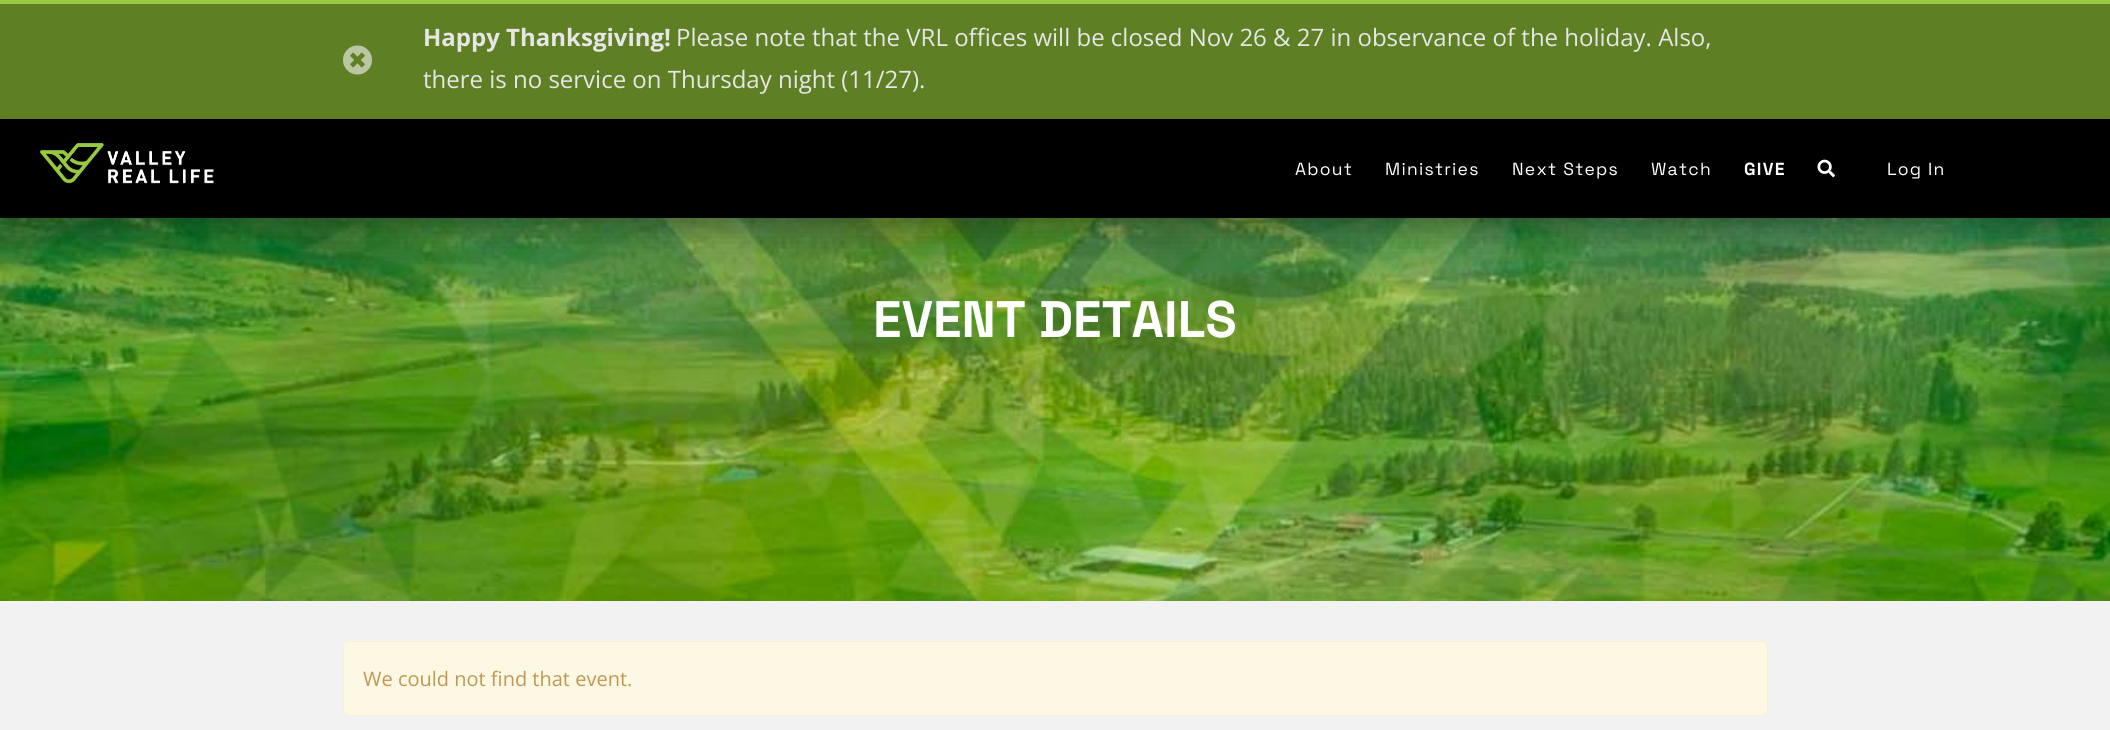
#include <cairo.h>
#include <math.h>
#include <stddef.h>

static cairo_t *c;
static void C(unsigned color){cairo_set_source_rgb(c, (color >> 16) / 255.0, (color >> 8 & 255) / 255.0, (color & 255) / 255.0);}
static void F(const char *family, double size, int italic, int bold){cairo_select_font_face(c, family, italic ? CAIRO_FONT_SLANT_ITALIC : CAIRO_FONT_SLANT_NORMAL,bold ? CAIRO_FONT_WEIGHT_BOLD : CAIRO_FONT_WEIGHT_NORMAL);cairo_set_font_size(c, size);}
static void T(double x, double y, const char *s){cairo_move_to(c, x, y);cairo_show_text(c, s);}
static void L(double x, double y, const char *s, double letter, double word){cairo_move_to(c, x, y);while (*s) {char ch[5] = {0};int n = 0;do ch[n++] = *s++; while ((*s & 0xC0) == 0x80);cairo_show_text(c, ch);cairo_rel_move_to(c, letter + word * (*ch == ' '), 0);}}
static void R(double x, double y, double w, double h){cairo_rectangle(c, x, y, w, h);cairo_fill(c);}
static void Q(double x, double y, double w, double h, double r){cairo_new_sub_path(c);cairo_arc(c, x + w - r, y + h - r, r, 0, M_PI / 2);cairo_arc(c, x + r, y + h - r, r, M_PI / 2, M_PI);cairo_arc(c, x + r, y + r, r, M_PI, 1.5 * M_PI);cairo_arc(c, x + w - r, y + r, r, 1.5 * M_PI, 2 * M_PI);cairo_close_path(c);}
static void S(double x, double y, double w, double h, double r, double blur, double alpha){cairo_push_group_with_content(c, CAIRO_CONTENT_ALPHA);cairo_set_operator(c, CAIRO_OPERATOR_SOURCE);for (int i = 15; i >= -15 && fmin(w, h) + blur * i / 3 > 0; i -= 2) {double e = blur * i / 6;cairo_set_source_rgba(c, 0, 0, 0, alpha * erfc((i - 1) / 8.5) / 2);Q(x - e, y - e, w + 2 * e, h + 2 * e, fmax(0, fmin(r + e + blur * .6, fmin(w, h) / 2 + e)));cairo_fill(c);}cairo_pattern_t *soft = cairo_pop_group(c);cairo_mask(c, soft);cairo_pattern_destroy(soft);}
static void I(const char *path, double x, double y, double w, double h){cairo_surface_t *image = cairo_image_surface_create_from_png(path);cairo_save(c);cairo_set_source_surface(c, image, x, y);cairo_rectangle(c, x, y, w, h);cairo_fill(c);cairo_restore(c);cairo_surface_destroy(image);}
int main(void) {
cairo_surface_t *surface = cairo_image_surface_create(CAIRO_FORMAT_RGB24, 2110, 730);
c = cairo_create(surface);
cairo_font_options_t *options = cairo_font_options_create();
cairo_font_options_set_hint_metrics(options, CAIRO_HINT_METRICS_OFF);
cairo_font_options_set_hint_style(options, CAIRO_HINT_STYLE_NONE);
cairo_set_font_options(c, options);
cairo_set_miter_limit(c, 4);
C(0xf2f2f2);
cairo_paint(c);
I("4.png",0,218,2110,383);
C(0x000000);
S(0,6,2110,218,0,6,.05);
S(0,19,2110,217,0,15.5,.15);
C(0x97ca41);
R(0,0,2110,4);
C(0x5e7f24);
R(0,4,2110,115);
I("1.png",343,45,29,30);
F("Open Sans",24,0,1);
C(0xe6e6e6);
T(423,46,"Happy Thanksgiving!");
F("Open Sans",24,0,0);
T(676,46,"Please note that the VRL offices will be closed Nov 26 & 27 in observance of the holiday. Also,");
T(423,88,"there is no service on Thursday night (11/27).");
C(0x000000);
S(0,125,2110,99,0,6,.05);
S(0,138,2110,98,0,15.5,.15);
C(0x000000);
R(0,119,2110,99);
I("2.png",40,143,174,41);
F("Space Grotesk",17.5,0,0);
C(0xffffff);
L(1295,175,"About",1.25,0);
L(1385,175,"Ministries",1.25,0);
L(1512,175,"Next Steps",1.25,0);
L(1651,175,"Watch",1.25,0);
F("Space Grotesk",17.5,0,1);
L(1744,175,"GIVE",1.25,0);
I("3.png",1817,159,18,19);
F("Space Grotesk",17.5,0,0);
L(1887,175,"Log In",1.25,0);
F("Space Grotesk",51.25,0,1);
T(873,337,"EVENT DETAILS");
C(0xfcf8e3);
Q(343.5,641.5,1424,74,4.5);
cairo_fill_preserve(c);
C(0xfbeed5);
cairo_set_line_width(c,1);
cairo_stroke(c);
F("Open Sans",20,0,0);
C(0xc09853);
T(363,686,"We could not find that event.");
cairo_surface_write_to_png(surface, "o.png");
cairo_font_options_destroy(options);
cairo_destroy(c);
cairo_surface_destroy(surface);
return 0;
}
